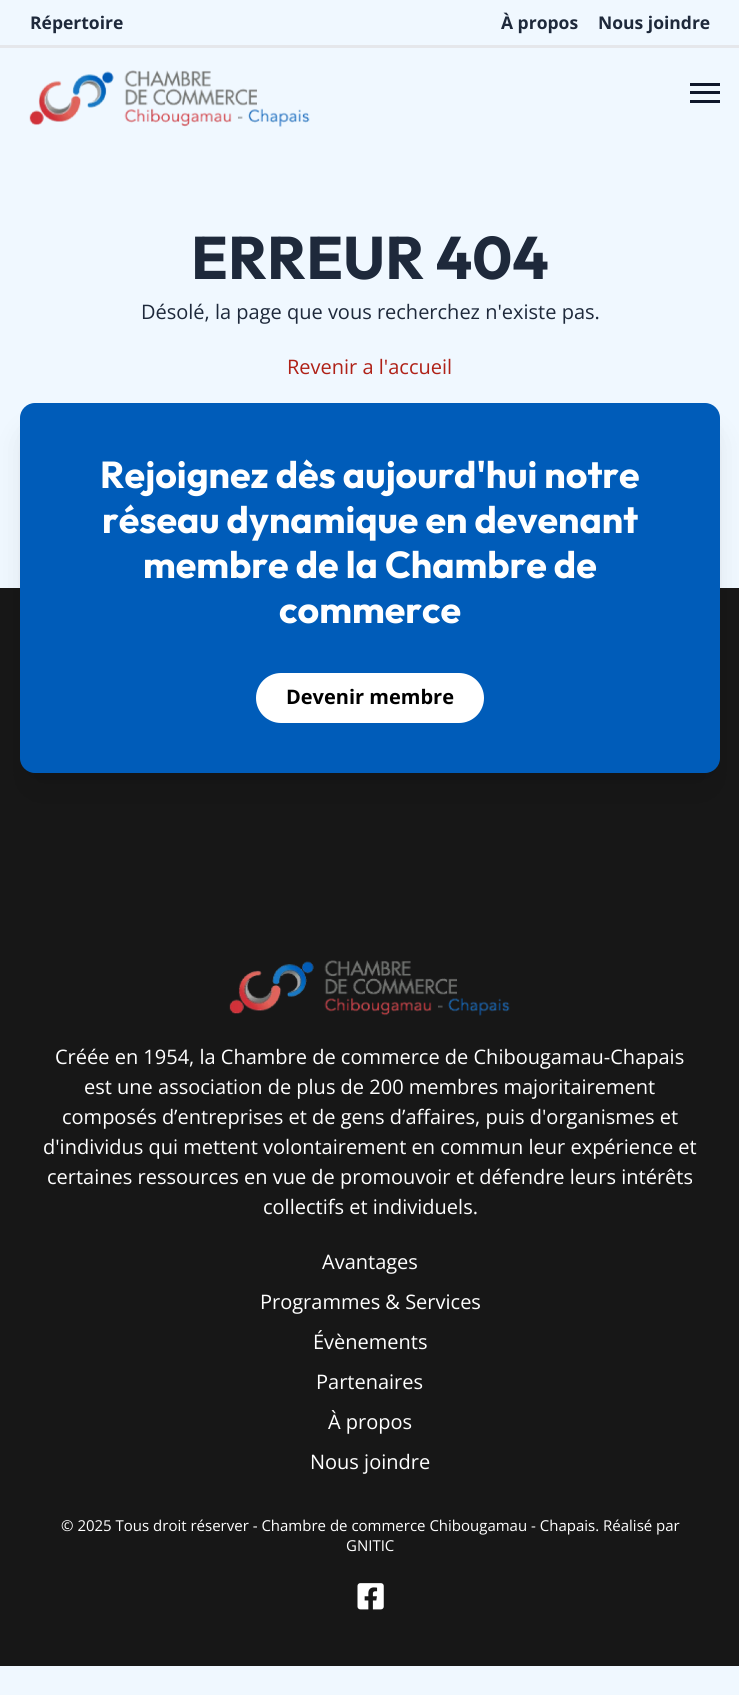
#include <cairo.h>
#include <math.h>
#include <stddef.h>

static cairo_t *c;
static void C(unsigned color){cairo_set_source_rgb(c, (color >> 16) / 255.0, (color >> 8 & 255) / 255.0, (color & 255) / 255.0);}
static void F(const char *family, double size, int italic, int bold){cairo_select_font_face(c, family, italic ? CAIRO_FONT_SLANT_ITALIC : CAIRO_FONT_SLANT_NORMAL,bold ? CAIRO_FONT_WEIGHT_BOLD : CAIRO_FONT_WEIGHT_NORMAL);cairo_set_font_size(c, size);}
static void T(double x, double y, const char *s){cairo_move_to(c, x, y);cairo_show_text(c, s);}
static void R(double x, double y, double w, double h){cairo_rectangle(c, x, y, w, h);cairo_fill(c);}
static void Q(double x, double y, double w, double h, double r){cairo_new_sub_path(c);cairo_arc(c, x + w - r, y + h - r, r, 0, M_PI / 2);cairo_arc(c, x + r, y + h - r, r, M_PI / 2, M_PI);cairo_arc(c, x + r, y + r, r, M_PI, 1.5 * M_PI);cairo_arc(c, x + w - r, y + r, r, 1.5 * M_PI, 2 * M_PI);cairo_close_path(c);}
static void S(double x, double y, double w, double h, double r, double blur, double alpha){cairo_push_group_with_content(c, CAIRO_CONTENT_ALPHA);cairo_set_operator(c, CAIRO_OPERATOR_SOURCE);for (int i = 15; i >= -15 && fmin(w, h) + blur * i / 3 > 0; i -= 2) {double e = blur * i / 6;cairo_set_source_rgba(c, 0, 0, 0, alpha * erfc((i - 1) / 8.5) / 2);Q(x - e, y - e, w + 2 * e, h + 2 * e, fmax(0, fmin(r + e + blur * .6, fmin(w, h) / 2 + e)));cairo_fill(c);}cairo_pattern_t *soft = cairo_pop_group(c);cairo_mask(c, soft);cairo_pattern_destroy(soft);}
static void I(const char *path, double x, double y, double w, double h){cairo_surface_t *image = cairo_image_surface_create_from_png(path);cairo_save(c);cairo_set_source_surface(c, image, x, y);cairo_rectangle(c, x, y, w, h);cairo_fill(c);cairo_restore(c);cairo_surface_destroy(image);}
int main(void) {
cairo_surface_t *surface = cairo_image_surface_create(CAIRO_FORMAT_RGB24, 739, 1695);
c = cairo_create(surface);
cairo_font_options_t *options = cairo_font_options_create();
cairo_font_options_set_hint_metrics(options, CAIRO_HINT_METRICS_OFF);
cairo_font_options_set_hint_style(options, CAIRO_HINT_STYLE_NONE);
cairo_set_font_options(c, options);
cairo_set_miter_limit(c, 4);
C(0xf0f8ff);
cairo_paint(c);
C(0xe5e7eb);
R(0,45,739,3);
F("Open Sans",17.5,0,1);
C(0x1e293b);
T(30,29,"Répertoire");
T(501,29,"À propos");
T(598,29,"Nous joindre");
I("1.png",29,70,281,57);
C(0x0f172a);
R(690,83,30,3);
R(690,91,30,3);
R(690,100,30,3);
F("Outfit",60,0,1);
C(0x1e293b);
T(191,279,"ERREUR 404");
F("Open Sans",20,0,0);
T(141,319,"Désolé, la page que vous recherchez n'existe pas.");
C(0xaf2117);
T(287,374,"Revenir a l'accueil");
C(0x171717);
R(0,588,739,1078);
C(0x000000);
S(28,420,685,355,8,6,.1);
S(26,434,688,357,9,15.5,.1);
C(0x005cb9);
Q(20,403,700,370,15);
cairo_fill(c);
F("Outfit",37.5,0,1);
C(0xffffff);
T(100,488,"Rejoignez dès aujourd'hui notre");
T(102,533,"réseau dynamique en devenant");
T(143,578,"membre de la Chambre de");
T(279,623,"commerce");
Q(256,673,228,50,25);
cairo_fill(c);
F("Open Sans",20,0,1);
C(0x000000);
T(286,704,"Devenir membre");
I("2.png",229,960,281,56);
F("Open Sans",20,0,0);
C(0xffffff);
T(55,1064,"Créée en 1954, la Chambre de commerce de Chibougamau-Chapais");
T(84,1094,"est une association de plus de 200 membres majoritairement");
T(62,1124,"composés d’entreprises et de gens d’affaires, puis d'organismes et");
T(43,1154,"d'individus qui mettent volontairement en commun leur expérience et");
T(47,1184,"certaines ressources en vue de promouvoir et défendre leurs intérêts");
T(263,1214,"collectifs et individuels.");
T(322,1269,"Avantages");
T(260,1309,"Programmes & Services");
T(313,1349,"Évènements");
T(316,1389,"Partenaires");
T(328,1429,"À propos");
T(310,1469,"Nous joindre");
F("Open Sans",15,0,0);
T(61,1531,"© 2025 Tous droit réserver - Chambre de commerce Chibougamau - Chapais. Réalisé par");
T(346,1551,"GNITIC");
I("3.png",357,1583,27,27);
cairo_surface_write_to_png(surface, "o.png");
cairo_font_options_destroy(options);
cairo_destroy(c);
cairo_surface_destroy(surface);
return 0;
}
